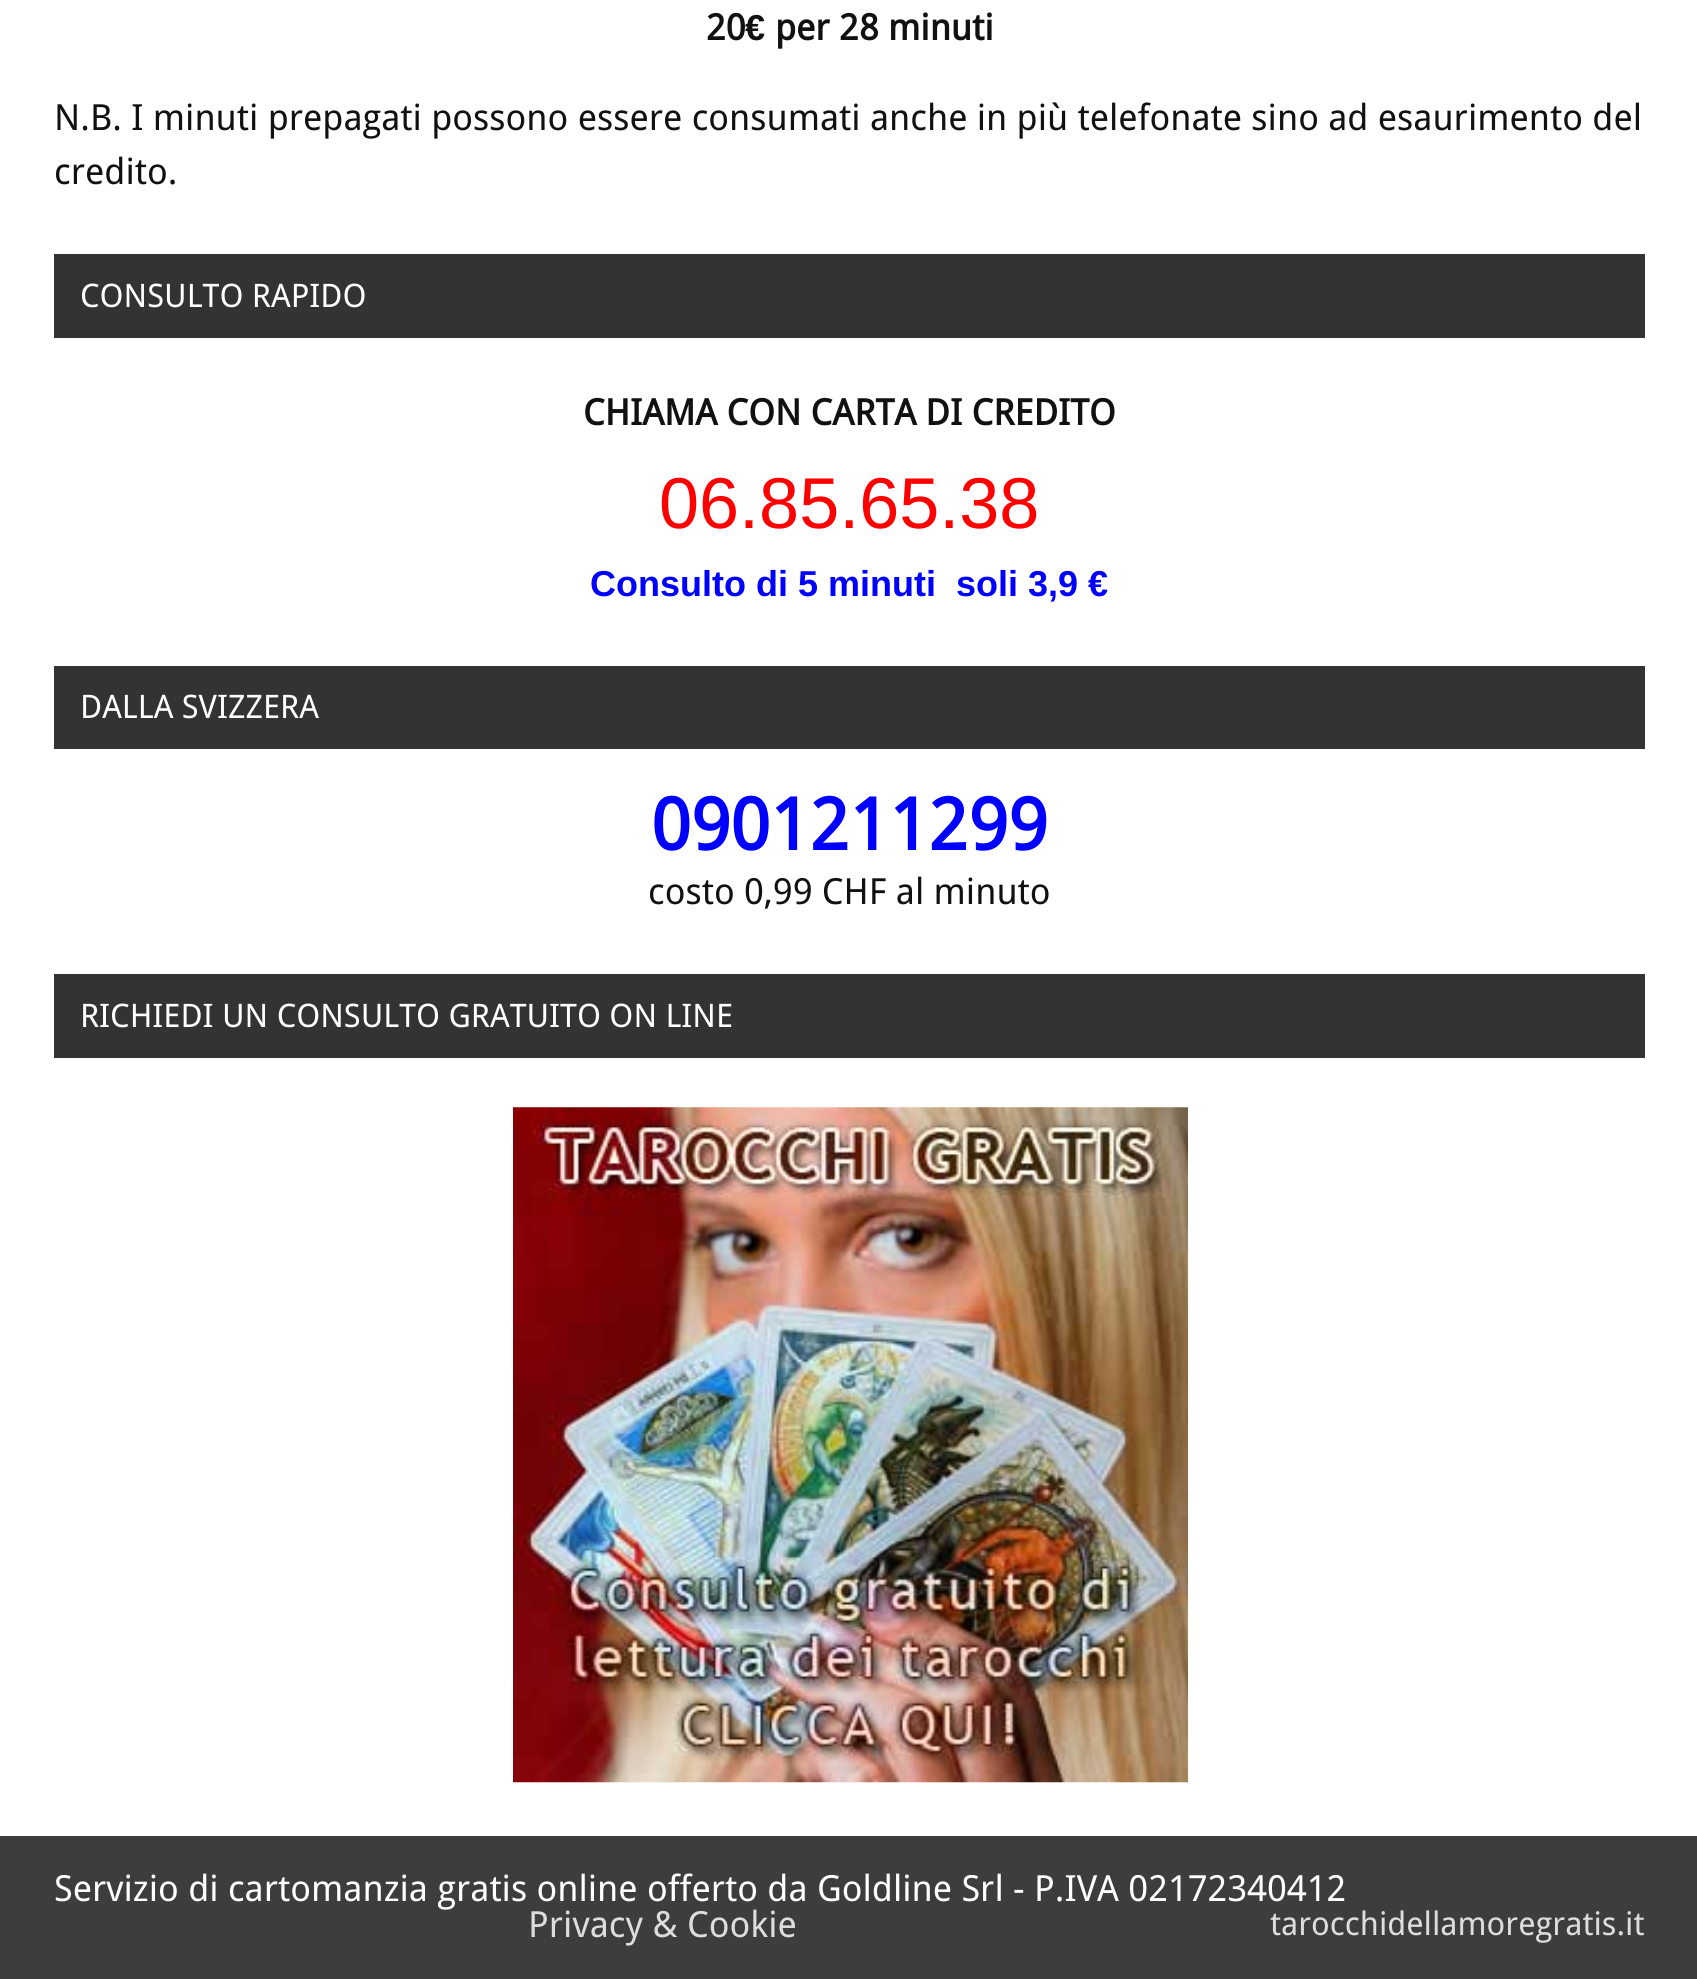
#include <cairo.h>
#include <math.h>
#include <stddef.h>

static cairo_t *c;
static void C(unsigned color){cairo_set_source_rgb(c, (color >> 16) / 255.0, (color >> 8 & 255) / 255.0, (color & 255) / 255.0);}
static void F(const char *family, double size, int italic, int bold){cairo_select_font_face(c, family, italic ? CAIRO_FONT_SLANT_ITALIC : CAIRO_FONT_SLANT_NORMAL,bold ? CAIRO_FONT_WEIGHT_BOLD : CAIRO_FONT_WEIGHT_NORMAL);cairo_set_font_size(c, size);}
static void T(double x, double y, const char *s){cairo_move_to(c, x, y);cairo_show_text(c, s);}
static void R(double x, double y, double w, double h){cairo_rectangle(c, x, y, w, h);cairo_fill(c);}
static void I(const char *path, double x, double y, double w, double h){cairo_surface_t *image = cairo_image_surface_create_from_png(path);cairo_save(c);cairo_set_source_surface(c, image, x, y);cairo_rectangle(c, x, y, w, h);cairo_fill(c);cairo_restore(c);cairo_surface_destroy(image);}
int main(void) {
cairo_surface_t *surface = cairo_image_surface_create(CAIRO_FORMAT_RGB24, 1697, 1979);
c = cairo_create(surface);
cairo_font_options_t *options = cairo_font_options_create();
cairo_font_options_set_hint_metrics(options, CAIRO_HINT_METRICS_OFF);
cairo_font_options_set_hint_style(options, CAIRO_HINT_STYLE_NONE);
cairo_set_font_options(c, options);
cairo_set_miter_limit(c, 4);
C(0xffffff);
cairo_paint(c);
F("Droid Sans",36,0,1);
C(0x111111);
T(706,40,"20");
F("Liberation Sans",36,0,1);
T(745,40,"€");
F("Droid Sans",36,0,1);
T(775,40,"per 28 minuti");
F("Droid Sans",36,0,0);
T(54,130,"N.B. I minuti prepagati possono essere consumati anche in più telefonate sino ad esaurimento del");
T(54,184,"credito.");
C(0x333333);
R(54,254,1591,84);
F("Droid Sans",32.4,0,0);
C(0xffffff);
T(80,307,"CONSULTO RAPIDO");
F("Droid Sans",36,0,1);
C(0x111111);
T(583,425,"CHIAMA CON CARTA DI CREDITO");
F("Liberation Sans",72,0,0);
C(0xff0000);
T(659,528,"06.85.65.38");
F("Liberation Sans",36,0,1);
C(0x0000ff);
T(590,596,"Consulto di 5 minuti  soli 3,9 €");
C(0x333333);
R(54,666,1591,83);
F("Droid Sans",32.4,0,0);
C(0xffffff);
T(80,718,"DALLA SVIZZERA");
F("Droid Sans",72,0,1);
C(0x0000ff);
T(651,850,"0901211299");
F("Droid Sans",36,0,0);
C(0x111111);
T(648,904,"costo 0,99 CHF al minuto");
C(0x333333);
R(54,974,1591,84);
F("Droid Sans",32.4,0,0);
C(0xffffff);
T(80,1027,"RICHIEDI UN CONSULTO GRATUITO ON LINE");
I("1.png",513,1107,675,676);
C(0x3d3d3d);
R(0,1836,1697,143);
F("Droid Sans",36,0,0);
C(0xffffff);
T(54,1901,"Servizio di cartomanzia gratis online offerto da Goldline Srl - P.IVA 02172340412");
C(0xdddddd);
T(528,1937,"Privacy & Cookie");
F("Droid Sans",32.4,0,0);
T(1270,1935,"tarocchidellamoregratis.it");
cairo_surface_write_to_png(surface, "o.png");
cairo_font_options_destroy(options);
cairo_destroy(c);
cairo_surface_destroy(surface);
return 0;
}
